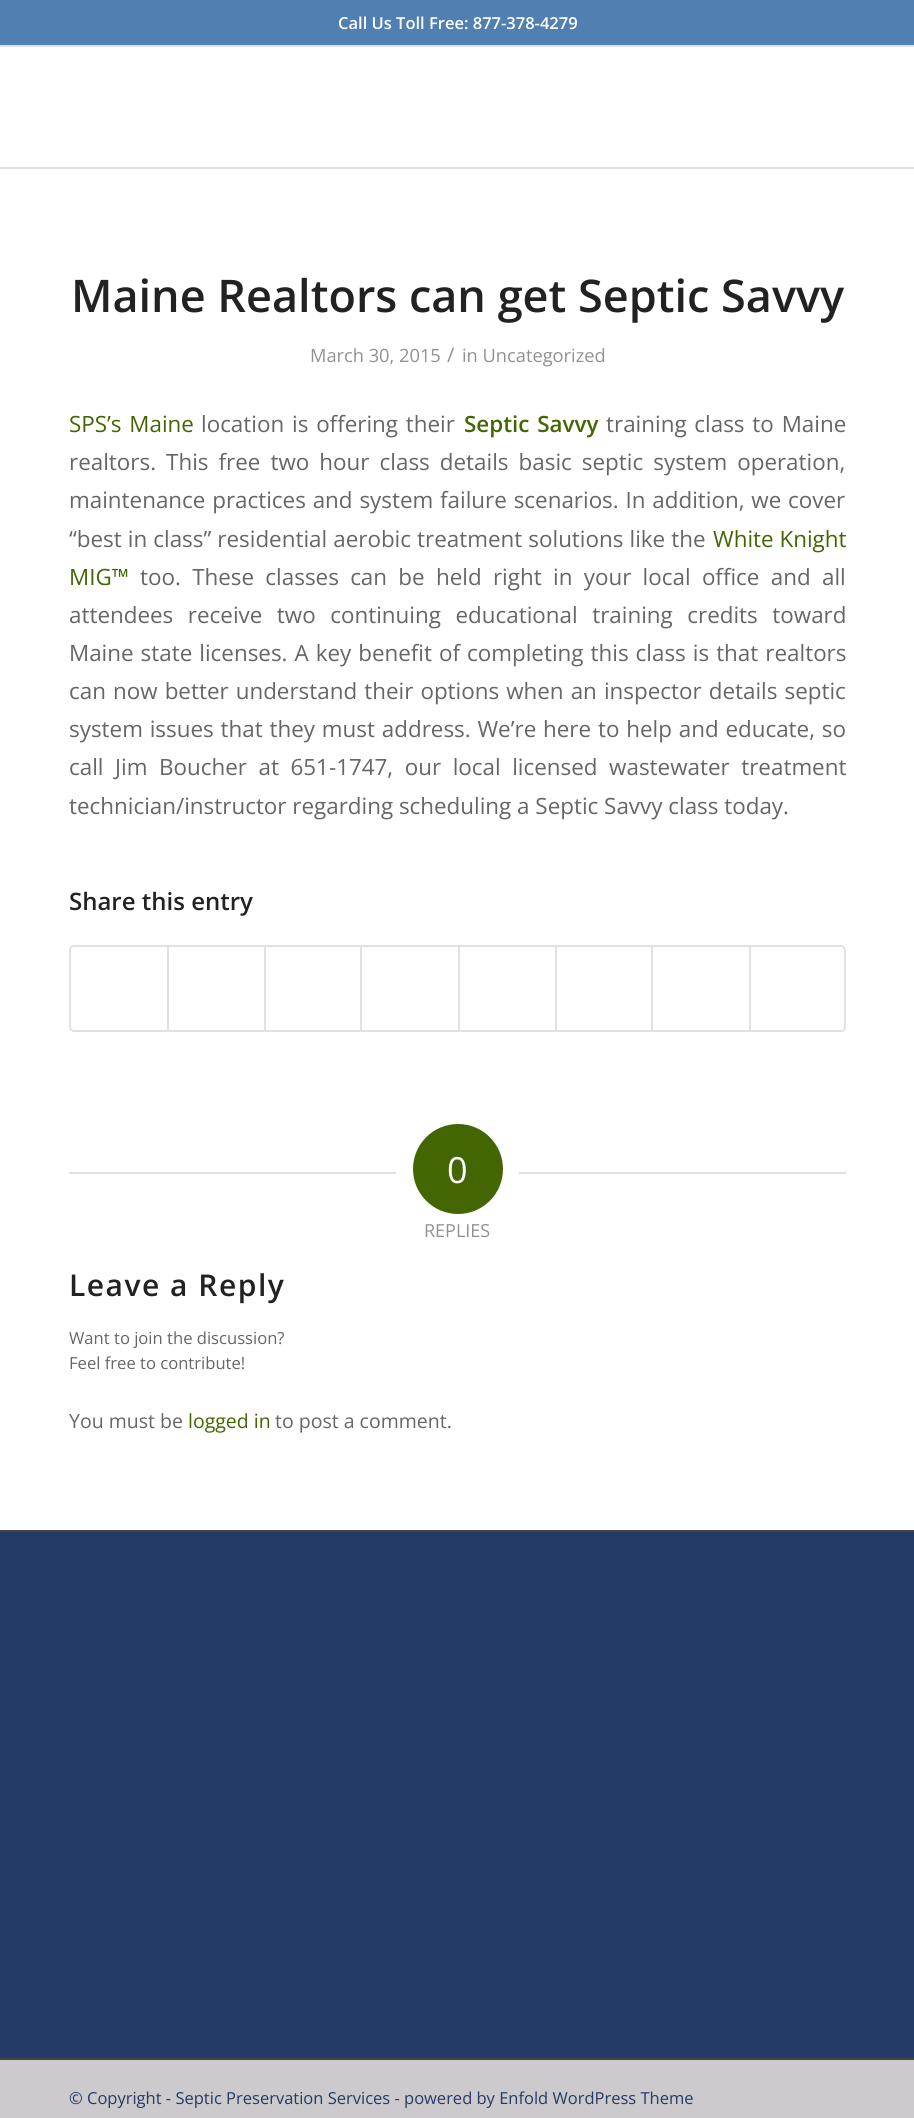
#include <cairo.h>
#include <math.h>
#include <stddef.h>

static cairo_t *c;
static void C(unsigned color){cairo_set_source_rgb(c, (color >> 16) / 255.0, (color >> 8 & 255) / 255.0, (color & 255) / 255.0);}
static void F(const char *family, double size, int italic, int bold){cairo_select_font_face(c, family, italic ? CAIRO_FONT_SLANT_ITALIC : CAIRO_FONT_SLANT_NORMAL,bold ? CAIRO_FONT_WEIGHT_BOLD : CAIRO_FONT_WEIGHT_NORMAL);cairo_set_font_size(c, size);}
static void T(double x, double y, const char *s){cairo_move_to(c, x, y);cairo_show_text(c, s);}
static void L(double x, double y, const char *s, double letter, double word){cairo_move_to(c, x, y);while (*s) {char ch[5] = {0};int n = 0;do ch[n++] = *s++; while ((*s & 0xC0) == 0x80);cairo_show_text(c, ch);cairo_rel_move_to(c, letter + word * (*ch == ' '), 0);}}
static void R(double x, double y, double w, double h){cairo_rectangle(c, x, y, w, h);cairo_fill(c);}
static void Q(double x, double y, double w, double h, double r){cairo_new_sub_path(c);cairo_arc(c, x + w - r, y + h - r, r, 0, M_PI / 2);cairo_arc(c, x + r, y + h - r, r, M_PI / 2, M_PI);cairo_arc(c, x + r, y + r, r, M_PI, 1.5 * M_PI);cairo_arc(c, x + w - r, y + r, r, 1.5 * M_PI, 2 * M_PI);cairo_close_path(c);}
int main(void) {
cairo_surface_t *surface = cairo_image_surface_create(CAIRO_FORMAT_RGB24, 914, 2118);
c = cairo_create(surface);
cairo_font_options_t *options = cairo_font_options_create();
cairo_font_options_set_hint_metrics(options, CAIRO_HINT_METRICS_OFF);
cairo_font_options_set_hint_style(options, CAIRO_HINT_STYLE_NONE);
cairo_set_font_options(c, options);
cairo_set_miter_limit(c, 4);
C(0xffffff);
cairo_paint(c);
C(0x4f80b1);
R(0,0,914,45);
C(0xe1e1e1);
R(0,45,914,2);
F("Open Sans SemiBold",16.5,0,0);
C(0xffffff);
T(338,29,"Call Us Toll Free: 877-378-4279");
C(0xe1e1e1);
R(0,167,914,2);
F("Open Sans SemiBold",45,0,0);
C(0x222222);
T(71,312,"Maine Realtors can get Septic Savvy");
F("Open Sans",18.25,0,0);
C(0x919191);
T(310,362,"March 30, 2015");
F("Open Sans",20,0,0);
T(447,362,"/");
F("Open Sans",18.25,0,0);
T(462,362,"in Uncategorized");
F("Open Sans",22.4,0,0);
C(0x436603);
L(69,432,"SPS’s Maine",0,2);
C(0x666666);
L(201,432,"location is offering their",0,2);
F("Open Sans SemiBold",22.4,0,0);
C(0x436603);
L(464,432,"Septic Savvy",0,2);
F("Open Sans",22.4,0,0);
C(0x666666);
L(606,432,"training class to Maine",0,2);
L(69,470,"realtors. This free two hour class details basic septic system operation,",0,4.25);
L(69,508,"maintenance practices and system failure scenarios. In addition, we cover",0,1);
L(69,547,"“best in class” residential aerobic treatment solutions like the",0,.25);
C(0x436603);
T(713,547,"White Knight");
T(69,585,"MIG™");
C(0x666666);
L(140,585,"too. These classes can be held right in your local office and all",0,5.5);
L(69,623,"attendees receive two continuing educational training credits toward",0,8.75);
L(69,661,"Maine state licenses. A key benefit of completing this class is that realtors",0,1.2);
L(69,699,"can now better understand their options when an inspector details septic",0,1.25);
L(69,737,"system issues that they must address. We’re here to help and educate, so",0,1);
L(69,775,"call Jim Boucher at 651-1747, our local licensed wastewater treatment",0,5.75);
T(69,814,"technician/instructor regarding scheduling a Septic Savvy class today.");
F("Open Sans SemiBold",24,0,0);
C(0x222222);
T(69,910,"Share this entry");
Q(70,946,775,85,4);
C(0xe1e1e1);
cairo_stroke(c);
R(167,947,2,84);
R(264,947,2,84);
R(360,947,2,84);
R(458,947,2,84);
R(555,947,2,84);
R(651,947,2,84);
R(749,947,2,84);
R(69,1172,327,2);
C(0x436603);
cairo_arc(c,458,1169,45,0,2 * M_PI);
cairo_fill(c);
F("Open Sans",36,0,0);
C(0xffffff);
T(447,1183,"0");
C(0xe1e1e1);
R(519,1172,327,2);
F("Open Sans",18,0,0);
C(0x919191);
T(424,1237,"REPLIES");
F("Open Sans SemiBold",30,0,0);
C(0x222222);
L(69,1296,"Leave a Reply",1.5,0);
F("Open Sans",16.6,0,0);
C(0x666666);
T(69,1344,"Want to join the discussion?");
T(69,1369,"Feel free to contribute!");
F("Open Sans",19.5,0,0);
T(69,1428,"You must be");
C(0x436603);
T(188,1428,"logged in");
C(0x666666);
T(275,1428,"to post a comment.");
C(0x243b67);
R(0,1532,914,526);
C(0x444444);
R(0,1530,914,2);
C(0xcccacc);
R(0,2060,914,58);
C(0x444444);
R(0,2058,914,2);
F("Open Sans",16.5,0,0);
C(0x243b67);
T(69,2104,"© Copyright - Septic Preservation Services - powered by Enfold WordPress Theme");
cairo_surface_write_to_png(surface, "o.png");
cairo_font_options_destroy(options);
cairo_destroy(c);
cairo_surface_destroy(surface);
return 0;
}
